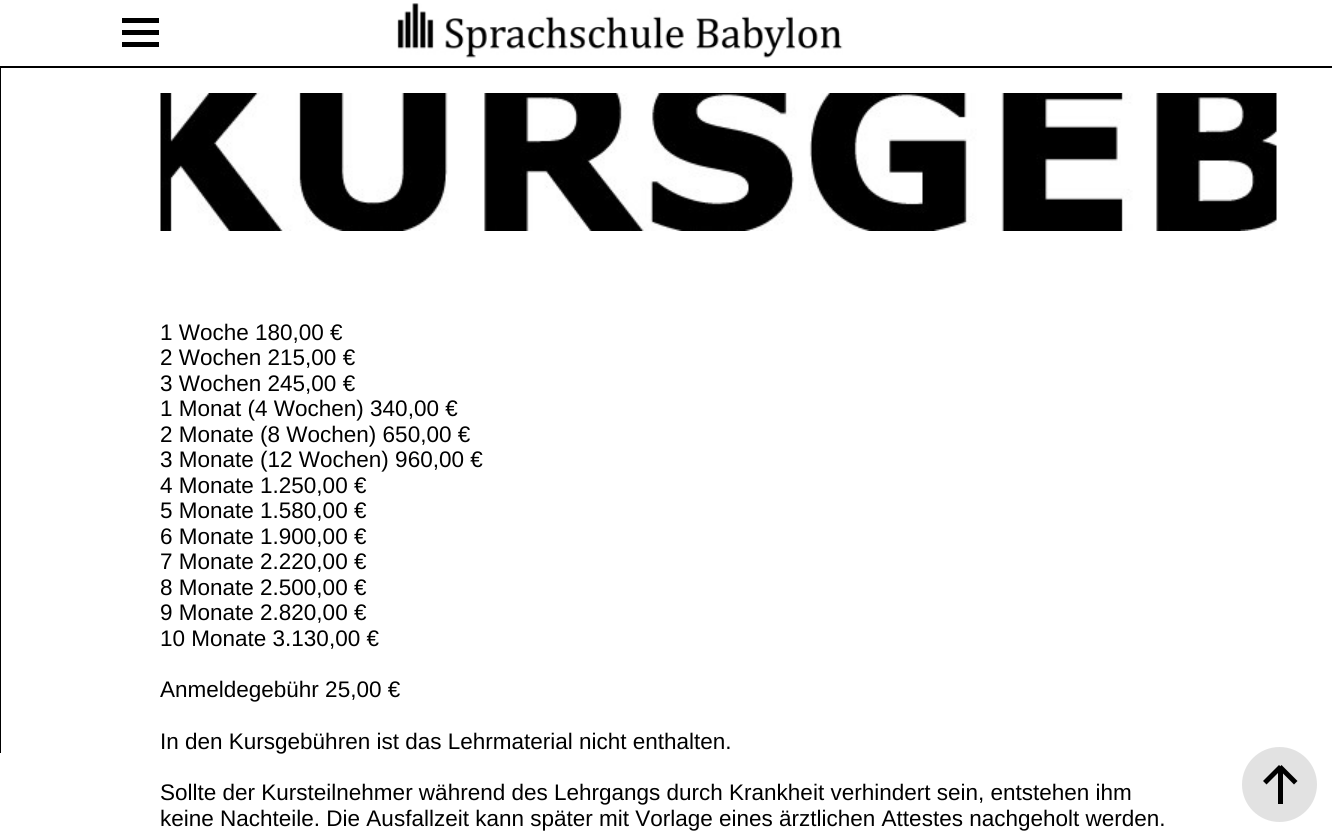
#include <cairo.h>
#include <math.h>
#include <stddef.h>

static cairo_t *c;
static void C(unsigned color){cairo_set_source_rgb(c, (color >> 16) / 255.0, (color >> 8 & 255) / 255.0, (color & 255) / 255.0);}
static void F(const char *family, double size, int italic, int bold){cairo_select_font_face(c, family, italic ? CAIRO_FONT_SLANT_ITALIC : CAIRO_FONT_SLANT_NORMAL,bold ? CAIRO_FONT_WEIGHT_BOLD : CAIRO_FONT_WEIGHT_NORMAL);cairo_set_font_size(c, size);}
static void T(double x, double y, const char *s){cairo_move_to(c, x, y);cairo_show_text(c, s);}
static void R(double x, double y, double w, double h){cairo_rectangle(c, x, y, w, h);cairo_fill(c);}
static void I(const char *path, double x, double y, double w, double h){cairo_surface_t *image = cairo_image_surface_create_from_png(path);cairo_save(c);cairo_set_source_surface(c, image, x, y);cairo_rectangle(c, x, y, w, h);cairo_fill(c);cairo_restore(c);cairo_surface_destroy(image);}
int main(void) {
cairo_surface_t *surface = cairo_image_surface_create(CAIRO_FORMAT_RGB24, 1332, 836);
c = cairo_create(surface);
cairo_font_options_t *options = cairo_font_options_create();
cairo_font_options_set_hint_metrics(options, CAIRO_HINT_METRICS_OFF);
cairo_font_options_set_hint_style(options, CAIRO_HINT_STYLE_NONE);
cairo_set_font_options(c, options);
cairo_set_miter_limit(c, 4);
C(0xffffff);
cairo_paint(c);
C(0x000000);
R(0,66,1332,2);
R(122,18,37,5);
R(122,30,37,5);
R(122,42,37,5);
I("1.png",397,3,446,55);
R(0,68,1,685);
I("2.png",160,93,1117,138);
F("Liberation Sans",22.5,0,0);
T(160,340,"1 Woche 180,00 €");
T(160,365,"2 Wochen 215,00 €");
T(160,391,"3 Wochen 245,00 €");
T(160,416,"1 Monat (4 Wochen) 340,00 €");
T(160,442,"2 Monate (8 Wochen) 650,00 €");
T(160,467,"3 Monate (12 Wochen) 960,00 €");
T(160,493,"4 Monate 1.250,00 €");
T(160,518,"5 Monate 1.580,00 €");
T(160,544,"6 Monate 1.900,00 €");
T(160,569,"7 Monate 2.220,00 €");
T(160,595,"8 Monate 2.500,00 €");
T(160,620,"9 Monate 2.820,00 €");
T(160,646,"10 Monate 3.130,00 €");
T(160,697,"Anmeldegebühr 25,00 €");
T(160,749,"In den Kursgebühren ist das Lehrmaterial nicht enthalten.");
T(160,800,"Sollte der Kursteilnehmer während des Lehrgangs durch Krankheit verhindert sein, entstehen ihm");
T(160,826,"keine Nachteile. Die Ausfallzeit kann später mit Vorlage eines ärztlichen Attestes nachgeholt werden.");
C(0xe2e2e2);
cairo_new_path(c);
cairo_arc(c,1279.5,784.5,37.5,0,2 * M_PI);
cairo_fill(c);
C(0x000000);
cairo_new_path(c);
cairo_move_to(c,1279,765);
cairo_line_to(c,1282.5,768.5);
cairo_line_to(c,1266.5,784.5);
cairo_line_to(c,1263,781);
cairo_close_path(c);
cairo_fill(c);
R(1278,767,5,37);
cairo_new_path(c);
cairo_move_to(c,1278,768.5);
cairo_line_to(c,1281.5,765);
cairo_line_to(c,1297.5,781);
cairo_line_to(c,1294,784.5);
cairo_close_path(c);
cairo_fill(c);
cairo_surface_write_to_png(surface, "o.png");
cairo_font_options_destroy(options);
cairo_destroy(c);
cairo_surface_destroy(surface);
return 0;
}
